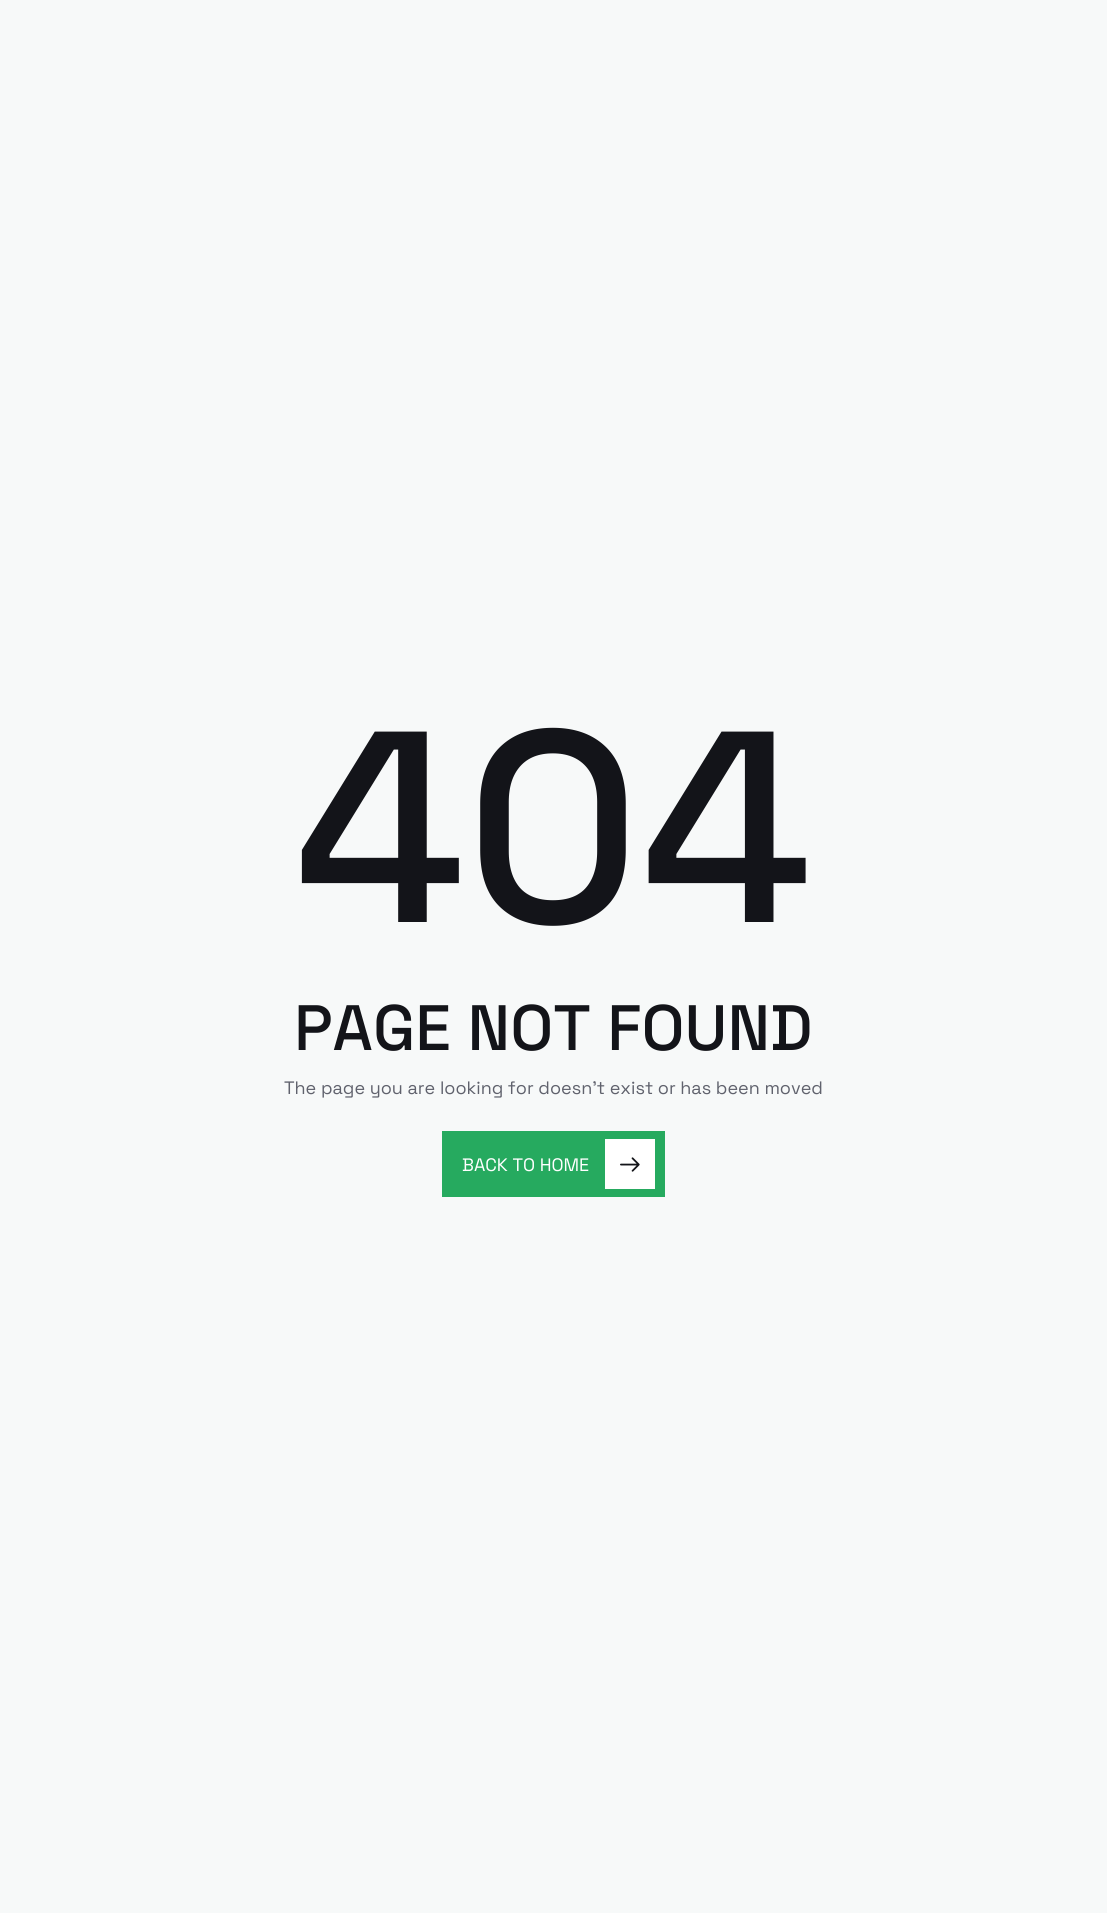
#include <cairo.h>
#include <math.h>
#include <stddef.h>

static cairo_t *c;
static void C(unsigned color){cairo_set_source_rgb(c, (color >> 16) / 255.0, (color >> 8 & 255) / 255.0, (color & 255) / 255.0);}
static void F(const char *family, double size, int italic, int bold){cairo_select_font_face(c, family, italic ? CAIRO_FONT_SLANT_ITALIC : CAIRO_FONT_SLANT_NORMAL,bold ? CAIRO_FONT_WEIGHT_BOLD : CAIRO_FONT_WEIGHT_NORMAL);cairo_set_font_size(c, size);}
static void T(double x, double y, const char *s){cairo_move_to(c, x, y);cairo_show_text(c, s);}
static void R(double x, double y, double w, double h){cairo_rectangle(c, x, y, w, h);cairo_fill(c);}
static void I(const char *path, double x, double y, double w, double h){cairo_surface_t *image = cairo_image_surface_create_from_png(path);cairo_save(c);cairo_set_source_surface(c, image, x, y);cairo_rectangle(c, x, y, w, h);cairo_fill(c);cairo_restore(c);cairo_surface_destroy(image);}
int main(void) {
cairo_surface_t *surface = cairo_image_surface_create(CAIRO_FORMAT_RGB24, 1107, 1913);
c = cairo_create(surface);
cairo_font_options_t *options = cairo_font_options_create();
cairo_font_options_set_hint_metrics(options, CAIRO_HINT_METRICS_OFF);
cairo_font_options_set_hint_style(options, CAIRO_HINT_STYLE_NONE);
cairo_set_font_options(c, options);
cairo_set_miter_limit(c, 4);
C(0xf7f9f9);
cairo_paint(c);
F("Space Grotesk Medium",272,0,0);
C(0x131419);
T(294,922,"404");
F("Space Grotesk Medium",64,0,0);
T(294,1050,"PAGE NOT FOUND");
F("Space Grotesk",18,0,0);
C(0x60626d);
T(284,1094,"The page you are looking for doesn't exist or has been moved");
C(0x26aa5f);
R(442,1131,223,66);
C(0xffffff);
T(462,1171,"BACK TO HOME");
R(605,1139,50,50);
I("1.png",620,1157,20,15);
cairo_surface_write_to_png(surface, "o.png");
cairo_font_options_destroy(options);
cairo_destroy(c);
cairo_surface_destroy(surface);
return 0;
}
